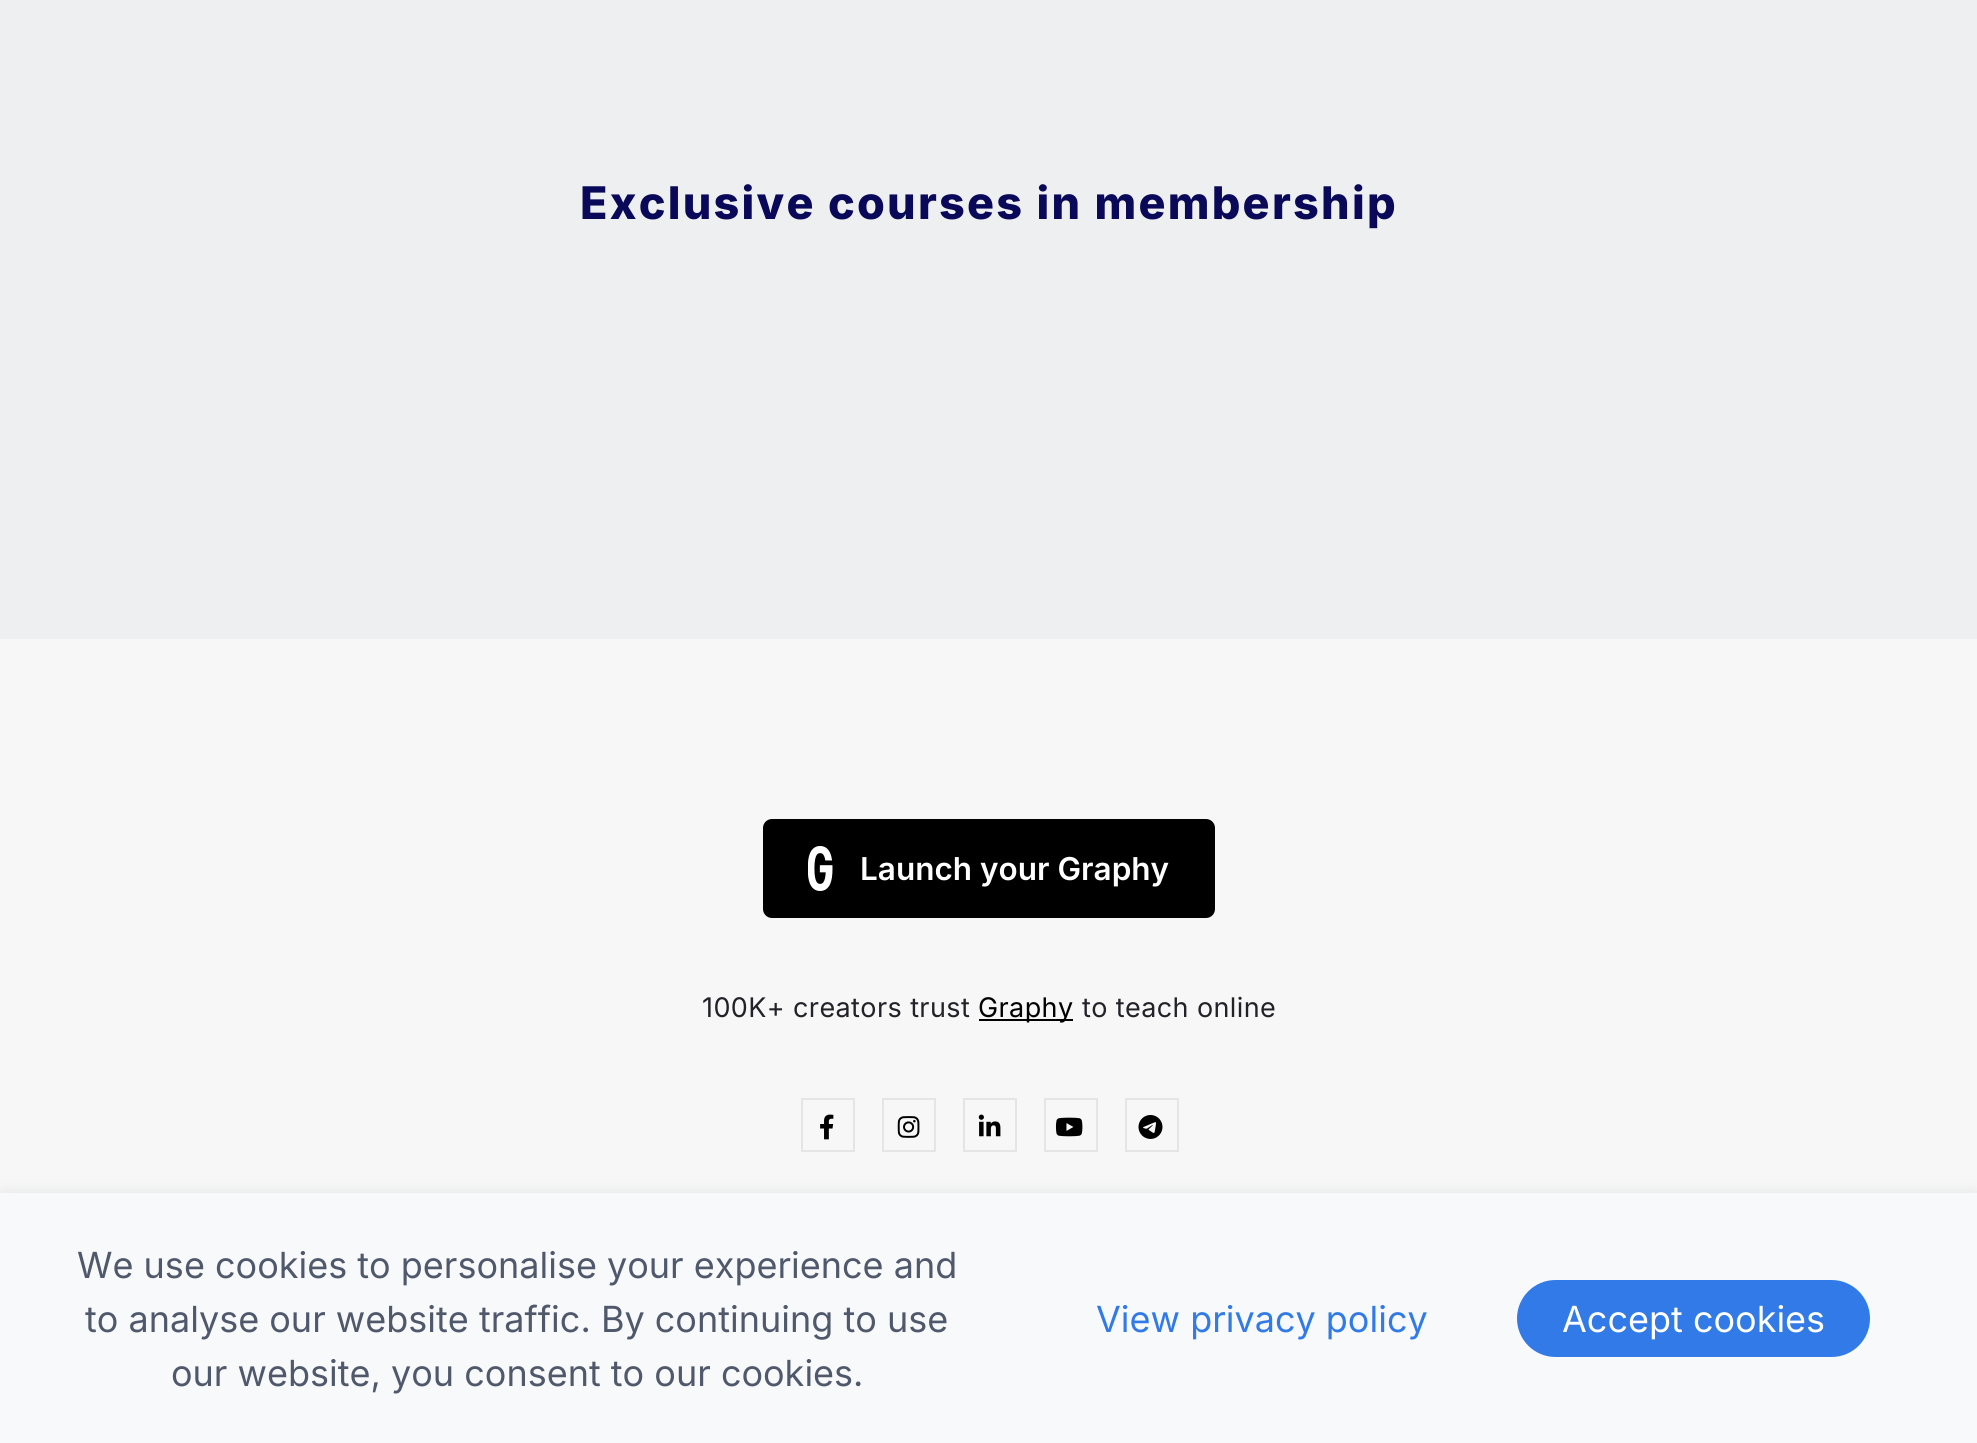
#include <cairo.h>
#include <math.h>
#include <stddef.h>

static cairo_t *c;
static void C(unsigned color){cairo_set_source_rgb(c, (color >> 16) / 255.0, (color >> 8 & 255) / 255.0, (color & 255) / 255.0);}
static void F(const char *family, double size, int italic, int bold){cairo_select_font_face(c, family, italic ? CAIRO_FONT_SLANT_ITALIC : CAIRO_FONT_SLANT_NORMAL,bold ? CAIRO_FONT_WEIGHT_BOLD : CAIRO_FONT_WEIGHT_NORMAL);cairo_set_font_size(c, size);}
static void T(double x, double y, const char *s){cairo_move_to(c, x, y);cairo_show_text(c, s);}
static void L(double x, double y, const char *s, double letter, double word){cairo_move_to(c, x, y);while (*s) {char ch[5] = {0};int n = 0;do ch[n++] = *s++; while ((*s & 0xC0) == 0x80);cairo_show_text(c, ch);cairo_rel_move_to(c, letter + word * (*ch == ' '), 0);}}
static void R(double x, double y, double w, double h){cairo_rectangle(c, x, y, w, h);cairo_fill(c);}
static void Q(double x, double y, double w, double h, double r){cairo_new_sub_path(c);cairo_arc(c, x + w - r, y + h - r, r, 0, M_PI / 2);cairo_arc(c, x + r, y + h - r, r, M_PI / 2, M_PI);cairo_arc(c, x + r, y + r, r, M_PI, 1.5 * M_PI);cairo_arc(c, x + w - r, y + r, r, 1.5 * M_PI, 2 * M_PI);cairo_close_path(c);}
static void S(double x, double y, double w, double h, double r, double blur, double alpha){cairo_push_group_with_content(c, CAIRO_CONTENT_ALPHA);cairo_set_operator(c, CAIRO_OPERATOR_SOURCE);for (int i = 15; i >= -15 && fmin(w, h) + blur * i / 3 > 0; i -= 2) {double e = blur * i / 6;cairo_set_source_rgba(c, 0, 0, 0, alpha * erfc((i - 1) / 8.5) / 2);Q(x - e, y - e, w + 2 * e, h + 2 * e, fmax(0, fmin(r + e + blur * .6, fmin(w, h) / 2 + e)));cairo_fill(c);}cairo_pattern_t *soft = cairo_pop_group(c);cairo_mask(c, soft);cairo_pattern_destroy(soft);}
static void I(const char *path, double x, double y, double w, double h){cairo_surface_t *image = cairo_image_surface_create_from_png(path);cairo_save(c);cairo_set_source_surface(c, image, x, y);cairo_rectangle(c, x, y, w, h);cairo_fill(c);cairo_restore(c);cairo_surface_destroy(image);}
int main(void) {
cairo_surface_t *surface = cairo_image_surface_create(CAIRO_FORMAT_RGB24, 1977, 1443);
c = cairo_create(surface);
cairo_font_options_t *options = cairo_font_options_create();
cairo_font_options_set_hint_metrics(options, CAIRO_HINT_METRICS_OFF);
cairo_font_options_set_hint_style(options, CAIRO_HINT_STYLE_NONE);
cairo_set_font_options(c, options);
cairo_set_miter_limit(c, 4);
C(0xf7f7f7);
cairo_paint(c);
C(0xeeeff0);
R(0,0,1977,639);
F("Inter ExtraBold",45,0,0);
C(0x0a0959);
L(580,219,"Exclusive courses in membership",2.25,0);
C(0x000000);
Q(763,819,452,99,9);
cairo_fill(c);
I("1.png",808,846,25,45);
F("Inter SemiBold",31.5,0,0);
C(0xffffff);
T(860,880,"Launch your Graphy");
F("Inter",27,0,0);
C(0x232228);
L(702,1017,"100K+ creators trust",.4,0);
C(0x000000);
R(979,1019,94,2);
L(978,1017,"Graphy",.4,0);
C(0x232228);
L(1082,1017,"to teach online",.4,0);
cairo_rectangle(c,802,1099,52,52);
C(0xe5e5e5);
cairo_stroke(c);
I("2.png",820,1114,14,26);
cairo_rectangle(c,883,1099,52,52);
cairo_stroke(c);
I("3.png",897,1116,23,22);
cairo_rectangle(c,964,1099,52,52);
cairo_stroke(c);
I("4.png",978,1114,23,23);
cairo_rectangle(c,1045,1099,52,52);
cairo_stroke(c);
I("5.png",1055,1117,28,20);
cairo_rectangle(c,1126,1099,52,52);
cairo_stroke(c);
I("6.png",1138,1115,25,24);
C(0x454d5d);
S(0,1202,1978,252,5,11,.3);
C(0xf8f9fa);
R(0,1193,1977,250);
F("Inter",36,0,0);
C(0x50596c);
T(77,1278,"We use cookies to personalise your experience and");
T(85,1332,"to analyse our website traffic. By continuing to use");
T(171,1386,"our website, you consent to our cookies.");
C(0x317ae7);
T(1096,1332,"View privacy policy");
Q(1517,1280,353,77,38.5);
cairo_fill(c);
C(0xffffff);
T(1562,1332,"Accept cookies");
cairo_surface_write_to_png(surface, "o.png");
cairo_font_options_destroy(options);
cairo_destroy(c);
cairo_surface_destroy(surface);
return 0;
}
